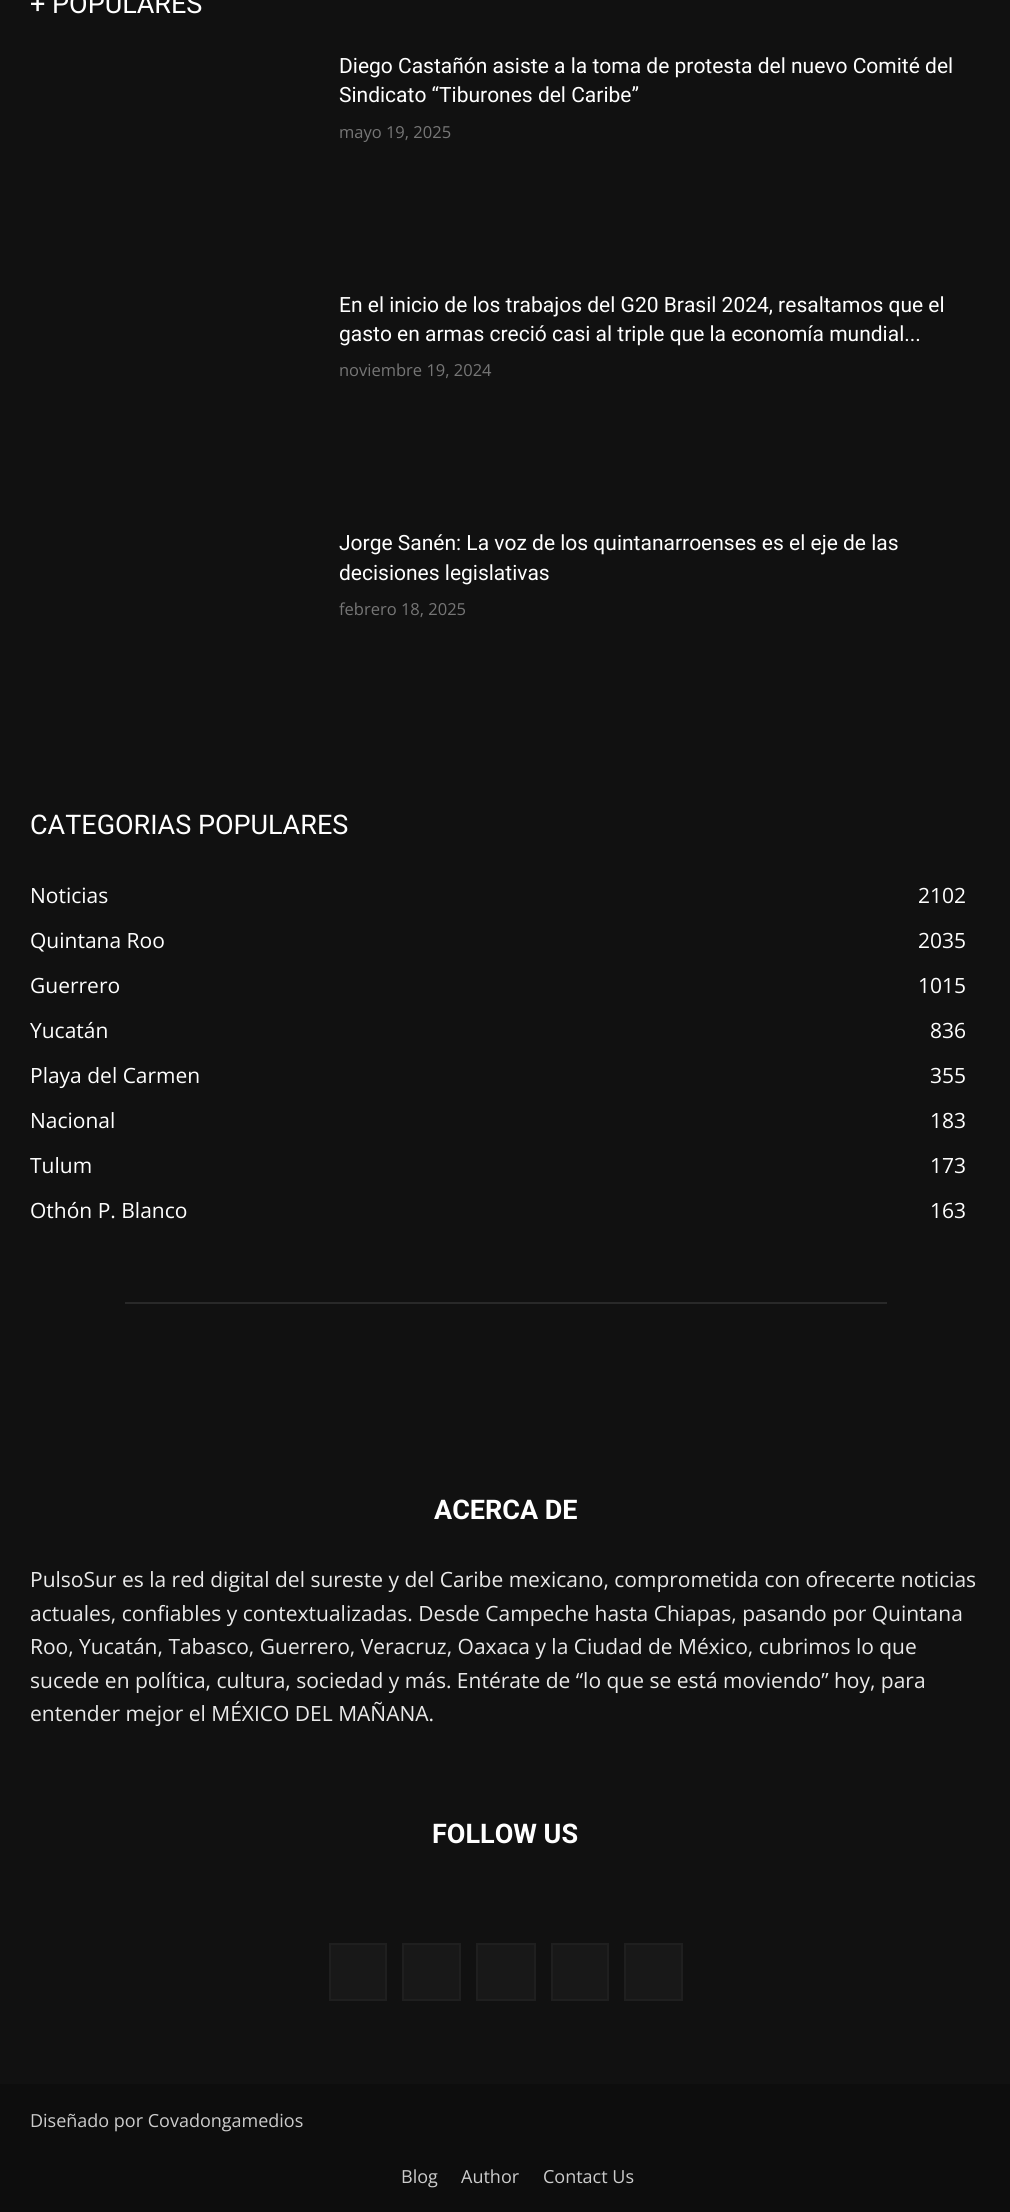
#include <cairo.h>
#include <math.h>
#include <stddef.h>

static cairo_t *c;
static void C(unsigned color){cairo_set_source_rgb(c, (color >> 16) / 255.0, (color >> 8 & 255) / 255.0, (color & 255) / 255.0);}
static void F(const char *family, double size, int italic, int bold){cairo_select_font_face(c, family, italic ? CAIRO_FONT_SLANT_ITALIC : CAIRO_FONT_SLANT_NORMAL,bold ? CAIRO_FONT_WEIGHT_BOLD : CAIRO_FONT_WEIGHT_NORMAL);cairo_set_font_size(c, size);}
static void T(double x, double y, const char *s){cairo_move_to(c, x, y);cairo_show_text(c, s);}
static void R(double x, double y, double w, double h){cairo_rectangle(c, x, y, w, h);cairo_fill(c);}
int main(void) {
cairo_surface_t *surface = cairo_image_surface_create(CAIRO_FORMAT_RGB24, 1010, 2212);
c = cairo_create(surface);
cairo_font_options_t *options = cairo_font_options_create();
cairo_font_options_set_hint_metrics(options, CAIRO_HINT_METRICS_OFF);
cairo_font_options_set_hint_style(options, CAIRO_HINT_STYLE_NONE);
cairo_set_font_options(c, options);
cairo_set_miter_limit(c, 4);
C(0x111111);
cairo_paint(c);
F("Roboto",27,0,0);
C(0xffffff);
T(30,13,"+ POPULARES");
F("Roboto",21,0,0);
T(339,73,"Diego Castañón asiste a la toma de protesta del nuevo Comité del");
T(339,102,"Sindicato “Tiburones del Caribe”");
F("Open Sans",16.5,0,0);
C(0x767676);
T(339,138,"mayo 19, 2025");
F("Roboto",21,0,0);
C(0xffffff);
T(339,312,"En el inicio de los trabajos del G20 Brasil 2024, resaltamos que el");
T(339,341,"gasto en armas creció casi al triple que la economía mundial...");
F("Open Sans",16.5,0,0);
C(0x767676);
T(339,376,"noviembre 19, 2024");
F("Roboto",21,0,0);
C(0xffffff);
T(339,550,"Jorge Sanén: La voz de los quintanarroenses es el eje de las");
T(339,580,"decisiones legislativas");
F("Open Sans",16.5,0,0);
C(0x767676);
T(339,615,"febrero 18, 2025");
F("Roboto",27,0,0);
C(0xffffff);
T(30,834,"CATEGORIAS POPULARES");
F("Open Sans",21,0,0);
T(30,903,"Noticias");
T(918,903,"2102");
T(30,948,"Quintana Roo");
T(918,948,"2035");
T(30,993,"Guerrero");
T(918,993,"1015");
T(30,1038,"Yucatán");
T(930,1038,"836");
T(30,1083,"Playa del Carmen");
T(930,1083,"355");
T(30,1128,"Nacional");
T(930,1128,"183");
T(30,1173,"Tulum");
T(930,1173,"173");
T(30,1218,"Othón P. Blanco");
T(930,1218,"163");
C(0x292929);
R(125,1302,762,2);
F("Roboto",27,0,1);
C(0xffffff);
T(434,1519,"ACERCA DE");
F("Open Sans",21,0,0);
C(0xeaeaea);
T(30,1587,"PulsoSur es la red digital del sureste y del Caribe mexicano, comprometida con ofrecerte noticias");
T(30,1621,"actuales, confiables y contextualizadas. Desde Campeche hasta Chiapas, pasando por Quintana");
T(30,1654,"Roo, Yucatán, Tabasco, Guerrero, Veracruz, Oaxaca y la Ciudad de México, cubrimos lo que");
T(30,1688,"sucede en política, cultura, sociedad y más. Entérate de “lo que se está moviendo” hoy, para");
T(30,1721,"entender mejor el MÉXICO DEL MAÑANA.");
F("Roboto",27,0,1);
C(0xffffff);
T(432,1843,"FOLLOW US");
C(0x181818);
cairo_rectangle(c,330,1944,56,56);
cairo_fill_preserve(c);
C(0x1f1f1f);
cairo_stroke(c);
C(0x181818);
cairo_rectangle(c,403,1944,57,56);
cairo_fill_preserve(c);
C(0x1f1f1f);
cairo_stroke(c);
C(0x181818);
cairo_rectangle(c,477,1944,58,56);
cairo_fill_preserve(c);
C(0x1f1f1f);
cairo_stroke(c);
C(0x181818);
cairo_rectangle(c,552,1944,56,56);
cairo_fill_preserve(c);
C(0x1f1f1f);
cairo_stroke(c);
C(0x181818);
cairo_rectangle(c,625,1944,57,56);
cairo_fill_preserve(c);
C(0x1f1f1f);
cairo_stroke(c);
C(0x0d0d0d);
R(0,2084,1010,128);
F("Open Sans",18,0,0);
C(0xcccccc);
T(30,2127,"Diseñado por Covadongamedios");
T(401,2183,"Blog");
T(461,2183,"Author");
T(543,2183,"Contact Us");
cairo_surface_write_to_png(surface, "o.png");
cairo_font_options_destroy(options);
cairo_destroy(c);
cairo_surface_destroy(surface);
return 0;
}
